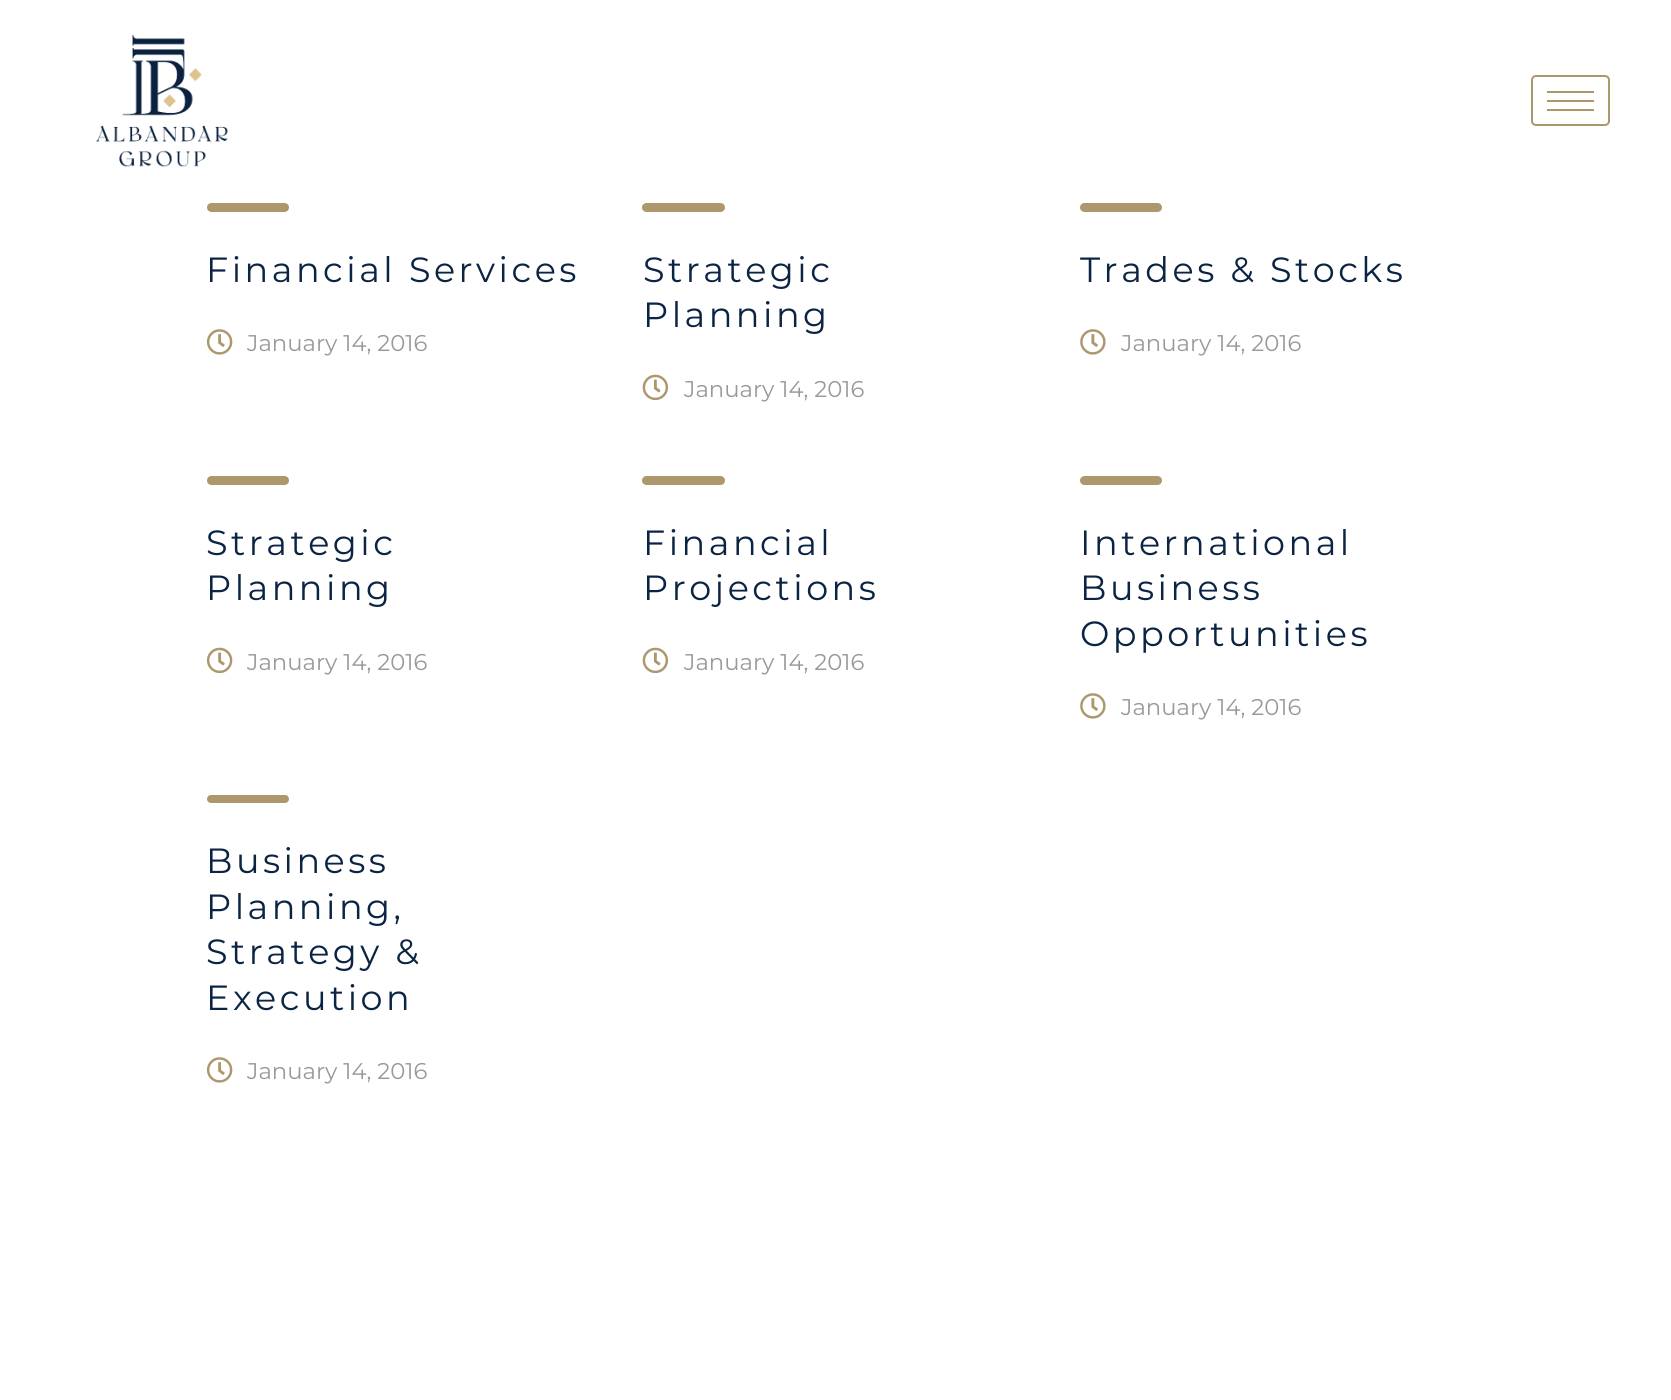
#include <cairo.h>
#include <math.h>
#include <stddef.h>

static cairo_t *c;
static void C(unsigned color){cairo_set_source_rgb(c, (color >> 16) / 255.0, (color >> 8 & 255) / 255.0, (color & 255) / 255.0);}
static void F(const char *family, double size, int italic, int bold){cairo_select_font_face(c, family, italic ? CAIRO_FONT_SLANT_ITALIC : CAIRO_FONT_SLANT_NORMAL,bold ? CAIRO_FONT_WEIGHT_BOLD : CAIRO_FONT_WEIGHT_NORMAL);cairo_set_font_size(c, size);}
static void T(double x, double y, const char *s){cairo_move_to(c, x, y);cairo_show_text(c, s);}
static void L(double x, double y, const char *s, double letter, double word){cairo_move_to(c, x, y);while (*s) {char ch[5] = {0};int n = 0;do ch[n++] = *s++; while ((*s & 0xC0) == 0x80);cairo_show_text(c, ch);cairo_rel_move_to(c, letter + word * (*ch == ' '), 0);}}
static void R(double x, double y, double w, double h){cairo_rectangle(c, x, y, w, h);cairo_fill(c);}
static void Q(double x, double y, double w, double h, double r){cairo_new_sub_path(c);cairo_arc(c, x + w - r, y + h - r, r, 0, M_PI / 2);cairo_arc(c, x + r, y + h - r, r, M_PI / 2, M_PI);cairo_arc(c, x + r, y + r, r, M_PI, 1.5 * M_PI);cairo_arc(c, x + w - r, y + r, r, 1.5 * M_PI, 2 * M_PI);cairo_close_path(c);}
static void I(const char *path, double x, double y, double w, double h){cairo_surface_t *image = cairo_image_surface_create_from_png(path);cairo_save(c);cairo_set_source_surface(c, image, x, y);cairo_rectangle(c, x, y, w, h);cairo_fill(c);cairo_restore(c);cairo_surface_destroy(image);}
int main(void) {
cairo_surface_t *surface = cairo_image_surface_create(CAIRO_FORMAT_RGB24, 1671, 1400);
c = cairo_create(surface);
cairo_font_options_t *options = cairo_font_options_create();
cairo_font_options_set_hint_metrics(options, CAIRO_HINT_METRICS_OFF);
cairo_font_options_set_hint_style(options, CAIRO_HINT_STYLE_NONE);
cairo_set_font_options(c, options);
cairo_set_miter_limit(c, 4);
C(0xffffff);
cairo_paint(c);
I("1.png",96,35,132,132);
Q(1532,76,77,49,4);
C(0xad986e);
cairo_stroke(c);
R(1547,91,47,2);
R(1547,100,47,2);
R(1547,109,47,2);
Q(207,203,82,9,4.5);
cairo_fill(c);
F("Montserrat",35,0,0);
C(0x0c2444);
L(206,282,"Financial Services",3.5,0);
I("2.png",206,329,27,26);
F("Montserrat",22.75,0,0);
C(0x999999);
T(247,351,"January 14, 2016");
C(0xad986e);
Q(642,203,83,9,4.5);
cairo_fill(c);
F("Montserrat",35,0,0);
C(0x0c2444);
L(643,282,"Strategic",3.5,0);
L(643,327,"Planning",3.5,0);
I("3.png",642,374,27,27);
F("Montserrat",22.75,0,0);
C(0x999999);
T(684,397,"January 14, 2016");
C(0xad986e);
Q(1080,203,82,9,4.5);
cairo_fill(c);
F("Montserrat",35,0,0);
C(0x0c2444);
L(1080,282,"Trades & Stocks",3.5,0);
I("4.png",1080,329,26,26);
F("Montserrat",22.75,0,0);
C(0x999999);
T(1121,351,"January 14, 2016");
C(0xad986e);
Q(207,476,82,9,4.5);
cairo_fill(c);
F("Montserrat",35,0,0);
C(0x0c2444);
L(206,555,"Strategic",3.5,0);
L(206,600,"Planning",3.5,0);
I("5.png",206,647,27,27);
F("Montserrat",22.75,0,0);
C(0x999999);
T(247,670,"January 14, 2016");
C(0xad986e);
Q(642,476,83,9,4.5);
cairo_fill(c);
F("Montserrat",35,0,0);
C(0x0c2444);
L(643,555,"Financial",3.5,0);
L(643,600,"Projections",3.5,0);
I("3.png",642,647,27,27);
F("Montserrat",22.75,0,0);
C(0x999999);
T(684,670,"January 14, 2016");
C(0xad986e);
Q(1080,476,82,9,4.5);
cairo_fill(c);
F("Montserrat",35,0,0);
C(0x0c2444);
L(1080,555,"International",3.5,0);
L(1080,600,"Business",3.5,0);
L(1080,646,"Opportunities",3.5,0);
I("4.png",1080,693,26,26);
F("Montserrat",22.75,0,0);
C(0x999999);
T(1121,715,"January 14, 2016");
C(0xad986e);
Q(207,795,82,8,4);
cairo_fill(c);
F("Montserrat",35,0,0);
C(0x0c2444);
L(206,873,"Business",3.5,0);
L(206,919,"Planning,",3.5,0);
L(206,964,"Strategy &",3.5,0);
L(206,1010,"Execution",3.5,0);
I("2.png",206,1057,27,26);
F("Montserrat",22.75,0,0);
C(0x999999);
T(247,1079,"January 14, 2016");
cairo_surface_write_to_png(surface, "o.png");
cairo_font_options_destroy(options);
cairo_destroy(c);
cairo_surface_destroy(surface);
return 0;
}
